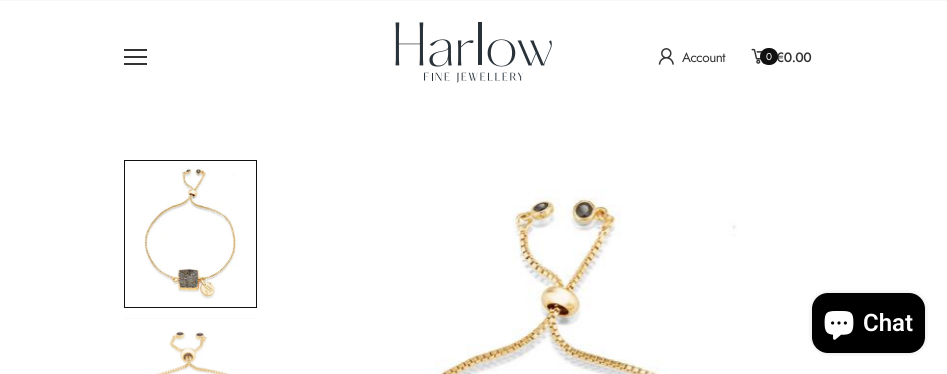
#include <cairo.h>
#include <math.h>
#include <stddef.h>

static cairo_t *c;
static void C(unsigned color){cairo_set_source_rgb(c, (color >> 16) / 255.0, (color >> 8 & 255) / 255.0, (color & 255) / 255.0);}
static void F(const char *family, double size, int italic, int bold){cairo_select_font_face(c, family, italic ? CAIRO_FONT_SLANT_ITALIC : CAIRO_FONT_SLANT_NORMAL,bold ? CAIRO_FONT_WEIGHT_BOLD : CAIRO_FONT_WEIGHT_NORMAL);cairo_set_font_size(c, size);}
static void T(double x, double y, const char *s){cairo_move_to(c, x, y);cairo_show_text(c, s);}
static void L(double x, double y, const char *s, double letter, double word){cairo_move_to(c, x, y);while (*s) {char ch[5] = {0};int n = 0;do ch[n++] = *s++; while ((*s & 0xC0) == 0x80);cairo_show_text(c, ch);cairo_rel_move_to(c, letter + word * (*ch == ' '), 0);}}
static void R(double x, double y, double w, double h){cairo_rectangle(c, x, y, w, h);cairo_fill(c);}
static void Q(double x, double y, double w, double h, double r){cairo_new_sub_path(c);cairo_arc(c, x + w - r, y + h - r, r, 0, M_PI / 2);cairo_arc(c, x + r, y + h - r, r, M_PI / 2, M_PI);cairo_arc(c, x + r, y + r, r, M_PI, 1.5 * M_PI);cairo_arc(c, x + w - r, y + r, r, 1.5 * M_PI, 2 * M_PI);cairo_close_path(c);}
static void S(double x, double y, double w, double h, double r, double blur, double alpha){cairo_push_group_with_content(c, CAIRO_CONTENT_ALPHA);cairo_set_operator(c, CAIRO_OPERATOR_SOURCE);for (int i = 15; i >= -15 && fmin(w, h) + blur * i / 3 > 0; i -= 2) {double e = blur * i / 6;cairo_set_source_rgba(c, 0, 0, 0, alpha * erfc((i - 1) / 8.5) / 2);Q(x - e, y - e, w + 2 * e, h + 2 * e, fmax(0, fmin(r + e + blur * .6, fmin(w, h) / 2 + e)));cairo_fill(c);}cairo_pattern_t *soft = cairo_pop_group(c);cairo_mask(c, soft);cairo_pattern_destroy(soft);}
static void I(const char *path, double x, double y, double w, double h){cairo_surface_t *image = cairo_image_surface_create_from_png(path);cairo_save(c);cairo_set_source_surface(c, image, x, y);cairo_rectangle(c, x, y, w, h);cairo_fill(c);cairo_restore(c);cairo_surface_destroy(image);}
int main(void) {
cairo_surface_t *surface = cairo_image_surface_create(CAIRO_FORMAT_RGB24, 947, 374);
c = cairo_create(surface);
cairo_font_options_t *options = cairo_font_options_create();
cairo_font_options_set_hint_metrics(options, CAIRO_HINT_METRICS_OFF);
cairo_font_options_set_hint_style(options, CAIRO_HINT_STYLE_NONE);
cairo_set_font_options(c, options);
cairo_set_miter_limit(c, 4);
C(0xffffff);
cairo_paint(c);
C(0xf8f8f8);
R(0,0,947,1);
C(0x333333);
R(124,49,23,2);
R(124,56,23,2);
R(124,63,23,2);
I("1.png",395,22,157,61);
I("2.png",658,48,16,17);
F("Jost",13.5,0,0);
L(682,62,"Account",-.5,0);
I("3.png",751,48,14,16);
F("Jost Medium",13.5,0,0);
L(776,62,"€0.00",-.5,0);
C(0x111111);
Q(760,48,18,17,8.5);
cairo_fill(c);
F("Jost",10,0,0);
C(0xffffff);
T(766,60,"0");
I("4.png",125,161,131,146);
cairo_rectangle(c,124.5,160.5,132,147);
C(0x111111);
cairo_set_line_width(c,1);
cairo_stroke(c);
C(0xf2f2f2);
R(124,318,133,1);
I("5.png",124,318,133,56);
I("6.png",267,160,566,214);
C(0x000000);
S(812,293,113,60,16,2.5,.15);
C(0x000000);
Q(812,293,113,60,16);
cairo_fill(c);
I("7.png",824,311,30,29);
F("Roboto SemiBold",24,0,0);
C(0xffffff);
T(863,331,"Chat");
cairo_surface_write_to_png(surface, "o.png");
cairo_font_options_destroy(options);
cairo_destroy(c);
cairo_surface_destroy(surface);
return 0;
}
